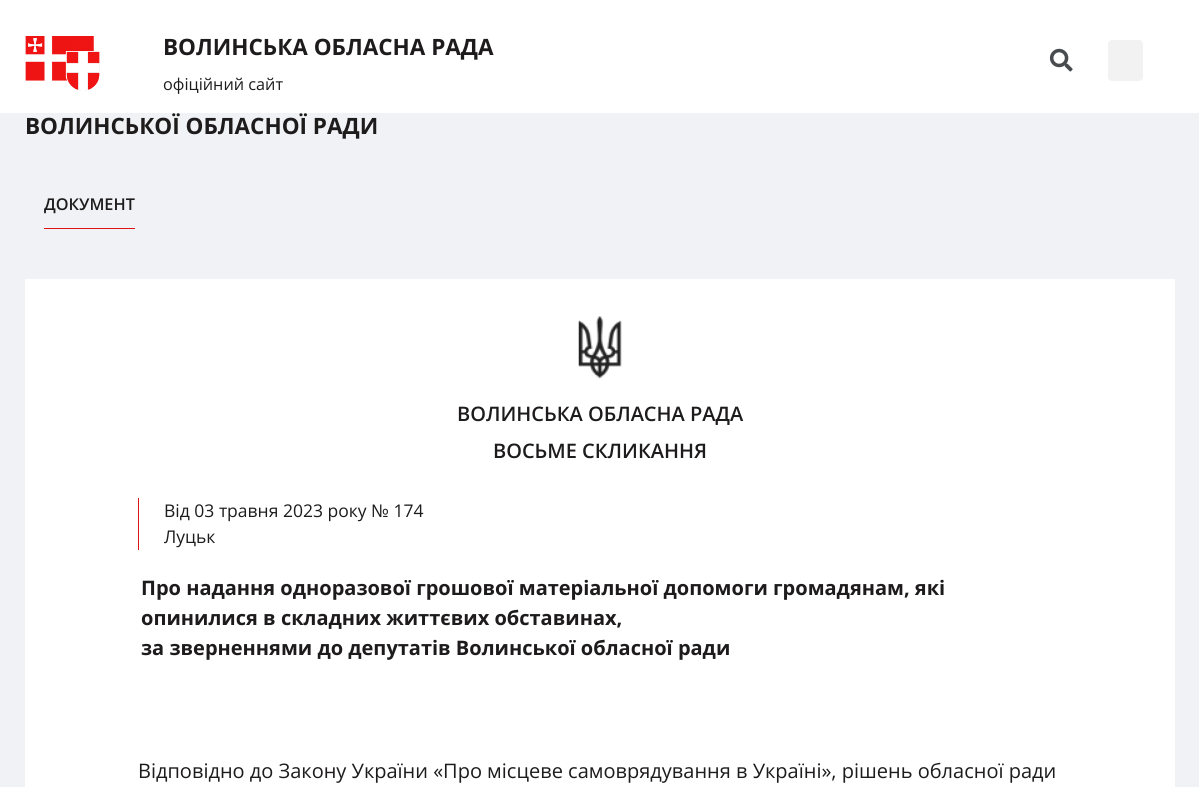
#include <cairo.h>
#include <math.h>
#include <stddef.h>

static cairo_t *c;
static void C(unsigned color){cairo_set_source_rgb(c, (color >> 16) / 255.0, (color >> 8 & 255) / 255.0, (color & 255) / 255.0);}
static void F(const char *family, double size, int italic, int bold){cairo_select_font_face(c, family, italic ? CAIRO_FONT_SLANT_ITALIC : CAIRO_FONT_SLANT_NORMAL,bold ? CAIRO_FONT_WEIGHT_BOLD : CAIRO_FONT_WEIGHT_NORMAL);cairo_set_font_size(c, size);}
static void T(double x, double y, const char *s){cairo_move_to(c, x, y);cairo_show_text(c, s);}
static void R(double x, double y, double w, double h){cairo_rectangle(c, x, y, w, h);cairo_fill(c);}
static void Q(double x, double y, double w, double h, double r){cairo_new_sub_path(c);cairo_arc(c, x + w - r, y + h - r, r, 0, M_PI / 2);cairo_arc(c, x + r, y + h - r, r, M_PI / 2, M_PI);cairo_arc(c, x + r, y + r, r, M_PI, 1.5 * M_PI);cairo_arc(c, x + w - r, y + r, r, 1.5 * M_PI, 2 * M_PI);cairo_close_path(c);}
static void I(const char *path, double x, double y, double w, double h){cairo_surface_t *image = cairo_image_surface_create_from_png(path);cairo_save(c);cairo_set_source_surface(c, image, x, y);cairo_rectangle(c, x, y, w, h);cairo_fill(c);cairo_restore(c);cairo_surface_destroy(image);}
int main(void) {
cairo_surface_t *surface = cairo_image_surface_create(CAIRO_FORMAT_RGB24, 1199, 787);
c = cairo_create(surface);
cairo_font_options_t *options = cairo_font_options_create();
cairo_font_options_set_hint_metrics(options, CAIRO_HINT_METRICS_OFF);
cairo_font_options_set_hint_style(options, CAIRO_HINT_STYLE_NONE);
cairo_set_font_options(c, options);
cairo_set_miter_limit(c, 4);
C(0xf0f2f5);
cairo_paint(c);
C(0xffffff);
R(0,0,1199,113);
I("1.png",25,36,75,55);
F("Open Sans",22.5,0,1);
C(0x1d1b1b);
T(163,55,"ВОЛИНСЬКА ОБЛАСНА РАДА");
F("Open Sans",16.25,0,0);
T(163,90,"офіційний сайт");
I("2.png",1049,48,24,24);
C(0xf2f2f2);
Q(1108,40,35,41,4);
cairo_fill(c);
F("Open Sans",22.5,0,1);
C(0x1d1b1b);
T(25,134,"ВОЛИНСЬКОЇ ОБЛАСНОЇ РАДИ");
C(0xdf1313);
R(44,228,91,1);
F("Open Sans SemiBold",16.25,0,0);
C(0x1d1b1b);
T(44,210,"ДОКУМЕНТ");
C(0xffffff);
R(25,279,1150,508);
I("3.png",578,316,44,63);
F("Open Sans SemiBold",20,0,0);
C(0x1d1b1b);
T(457,421,"ВОЛИНСЬКА ОБЛАСНА РАДА");
T(493,458,"ВОСЬМЕ СКЛИКАННЯ");
C(0xdf1313);
R(138,498,1,52);
F("Open Sans",17.5,0,0);
C(0x1d1b1b);
T(164,517,"Від 03 травня 2023 року № 174");
T(164,543,"Луцьк");
F("Open Sans",20,0,1);
T(141,595,"Про надання одноразової грошової матеріальної допомоги громадянам, які");
T(141,625,"опинилися в складних життєвих обставинах,");
T(141,655,"за зверненнями до депутатів Волинської обласної ради");
F("Open Sans",20,0,0);
T(138,778,"Відповідно до Закону України «Про місцеве самоврядування в Україні», рішень обласної ради");
cairo_surface_write_to_png(surface, "o.png");
cairo_font_options_destroy(options);
cairo_destroy(c);
cairo_surface_destroy(surface);
return 0;
}
